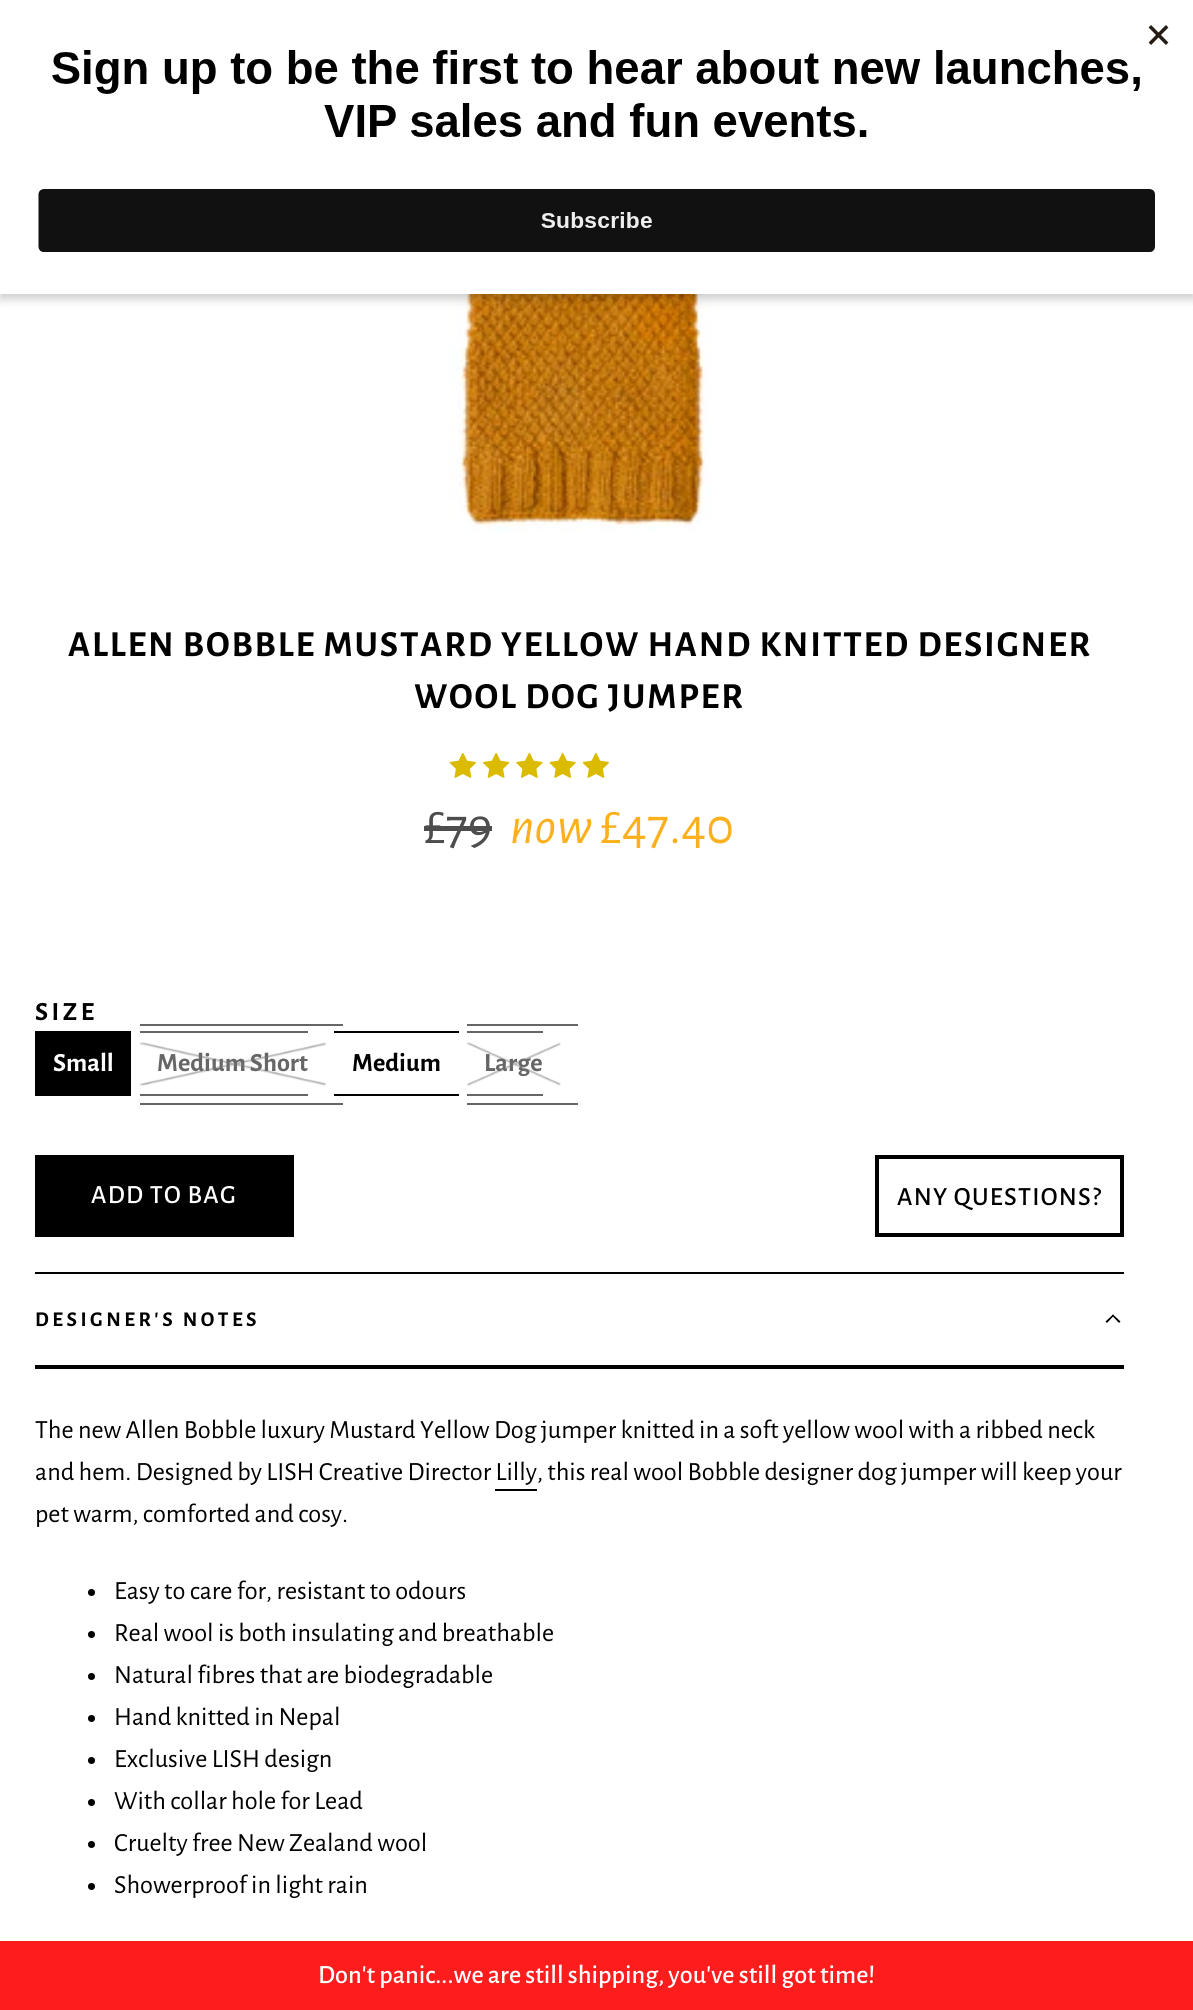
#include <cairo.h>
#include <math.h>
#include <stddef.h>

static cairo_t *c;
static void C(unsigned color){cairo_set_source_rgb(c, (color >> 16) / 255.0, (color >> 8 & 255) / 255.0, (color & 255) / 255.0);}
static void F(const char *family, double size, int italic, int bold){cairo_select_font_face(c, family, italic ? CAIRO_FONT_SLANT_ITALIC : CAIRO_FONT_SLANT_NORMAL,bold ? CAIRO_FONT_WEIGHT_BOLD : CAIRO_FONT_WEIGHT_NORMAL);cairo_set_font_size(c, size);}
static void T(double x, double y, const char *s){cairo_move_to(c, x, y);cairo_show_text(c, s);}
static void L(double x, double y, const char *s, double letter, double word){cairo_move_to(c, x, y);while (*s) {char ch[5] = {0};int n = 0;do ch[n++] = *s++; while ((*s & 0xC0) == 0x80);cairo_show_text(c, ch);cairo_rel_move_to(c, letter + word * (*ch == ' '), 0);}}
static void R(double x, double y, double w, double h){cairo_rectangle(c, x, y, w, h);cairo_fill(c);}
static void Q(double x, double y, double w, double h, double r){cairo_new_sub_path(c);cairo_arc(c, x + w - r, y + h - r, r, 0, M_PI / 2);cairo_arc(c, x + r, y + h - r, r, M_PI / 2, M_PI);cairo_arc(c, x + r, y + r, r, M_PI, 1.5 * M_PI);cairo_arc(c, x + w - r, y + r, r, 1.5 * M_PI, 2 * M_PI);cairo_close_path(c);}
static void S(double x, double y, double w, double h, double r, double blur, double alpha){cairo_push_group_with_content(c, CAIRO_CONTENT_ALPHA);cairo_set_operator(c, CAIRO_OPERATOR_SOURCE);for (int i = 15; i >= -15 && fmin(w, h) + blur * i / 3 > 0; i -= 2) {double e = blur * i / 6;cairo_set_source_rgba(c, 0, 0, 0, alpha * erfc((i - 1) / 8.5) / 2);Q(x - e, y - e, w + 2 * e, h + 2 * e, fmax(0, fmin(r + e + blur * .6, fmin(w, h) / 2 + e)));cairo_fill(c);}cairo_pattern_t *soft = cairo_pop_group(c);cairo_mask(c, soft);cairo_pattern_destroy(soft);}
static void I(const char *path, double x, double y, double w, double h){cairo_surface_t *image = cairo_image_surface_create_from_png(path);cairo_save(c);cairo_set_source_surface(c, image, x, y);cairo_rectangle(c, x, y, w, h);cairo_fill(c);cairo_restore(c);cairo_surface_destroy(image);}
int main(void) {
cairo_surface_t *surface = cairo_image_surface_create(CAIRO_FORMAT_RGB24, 1193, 2010);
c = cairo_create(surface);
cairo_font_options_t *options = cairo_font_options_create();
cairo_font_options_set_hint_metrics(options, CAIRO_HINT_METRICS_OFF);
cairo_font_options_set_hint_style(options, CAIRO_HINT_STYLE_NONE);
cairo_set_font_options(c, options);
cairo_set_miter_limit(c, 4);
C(0xffffff);
cairo_paint(c);
I("2.png",449,294,262,239);
C(0x000000);
S(0,5,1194,294,0,5,.2);
C(0xffffff);
R(0,0,1193,294);
I("1.png",38,25,1131,227);
F("Alegreya Sans",36.75,0,1);
C(0x000000);
L(68,656,"ALLEN BOBBLE MUSTARD YELLOW HAND KNITTED DESIGNER",1.85,0);
L(414,708,"WOOL DOG JUMPER",1.85,0);
I("3.png",449,752,27,26);
I("4.png",483,753,27,25);
I("5.png",516,752,27,26);
I("6.png",549,752,27,26);
I("3.png",582,752,27,26);
F("Alegreya Sans",52.5,0,0);
C(0x4d4d4d);
T(424,843,"£79");
R(424,826,68,5);
F("Alegreya Sans",52.5,1,0);
C(0xfdb01d);
T(510,843,"now");
F("Alegreya Sans",52.5,0,0);
T(600,843,"£47.40");
F("Alegreya Sans",26.25,0,1);
C(0x000000);
L(35,1020,"SIZE",3.5,0);
R(35,1031,96,65);
C(0xffffff);
T(53,1071,"Small");
C(0x666666);
R(140,1031,168,2);
R(140,1094,168,2);
R(140,1024,203,2);
R(140,1103,203,2);
T(157,1071,"Medium Short");
I("7.png",139,1042,188,44);
C(0x000000);
T(352,1071,"Medium");
R(334,1031,125,2);
R(334,1094,125,2);
C(0x666666);
R(467,1031,76,2);
R(467,1094,76,2);
R(467,1024,111,2);
R(467,1103,111,2);
T(484,1071,"Large");
I("8.png",466,1042,95,44);
C(0x000000);
R(35,1155,259,82);
F("Alegreya Sans Medium",26.25,0,0);
C(0xffffff);
L(91,1203,"ADD TO BAG",1.25,0);
cairo_rectangle(c,877,1157,245,78);
C(0x000000);
cairo_set_line_width(c,4);
cairo_stroke(c);
L(897,1205,"ANY QUESTIONS?",1.25,0);
R(35,1272,1089,2);
R(35,1365,1089,4);
F("Alegreya Sans",21,0,1);
L(35,1326,"DESIGNER'S NOTES",3.5,0);
cairo_new_path(c);
cairo_move_to(c,1107,1323);
cairo_line_to(c,1105.5,1321.5);
cairo_line_to(c,1113,1314.5);
cairo_line_to(c,1114,1315.5);
cairo_close_path(c);
cairo_fill(c);
cairo_new_path(c);
cairo_move_to(c,1119,1323);
cairo_line_to(c,1112,1315.5);
cairo_line_to(c,1113,1314.5);
cairo_line_to(c,1120.5,1321.5);
cairo_close_path(c);
cairo_fill(c);
F("Alegreya Sans",26.25,0,0);
T(35,1438,"The new Allen Bobble luxury Mustard Yellow Dog jumper knitted in a soft yellow wool with a ribbed neck");
T(35,1480,"and hem. Designed by LISH Creative Director Lilly, this real wool Bobble designer dog jumper will keep your");
R(495,1489,42,2);
T(35,1522,"pet warm, comforted and cosy.");
cairo_new_path(c);
cairo_arc(c,91.5,1592.5,3.5,0,2 * M_PI);
cairo_fill(c);
T(114,1599,"Easy to care for, resistant to odours");
cairo_new_path(c);
cairo_arc(c,91.5,1634.5,3.5,0,2 * M_PI);
cairo_fill(c);
T(114,1641,"Real wool is both insulating and breathable");
cairo_new_path(c);
cairo_arc(c,91.5,1676.5,3.5,0,2 * M_PI);
cairo_fill(c);
T(114,1683,"Natural fibres that are biodegradable");
cairo_new_path(c);
cairo_arc(c,91.5,1718.5,3.5,0,2 * M_PI);
cairo_fill(c);
T(114,1725,"Hand knitted in Nepal");
cairo_new_path(c);
cairo_arc(c,91.5,1760.5,3.5,0,2 * M_PI);
cairo_fill(c);
T(114,1767,"Exclusive LISH design");
cairo_new_path(c);
cairo_arc(c,91.5,1802.5,3.5,0,2 * M_PI);
cairo_fill(c);
T(114,1809,"With collar hole for Lead");
cairo_new_path(c);
cairo_arc(c,91.5,1844.5,3.5,0,2 * M_PI);
cairo_fill(c);
T(114,1851,"Cruelty free New Zealand wool");
cairo_new_path(c);
cairo_arc(c,91.5,1886.5,3.5,0,2 * M_PI);
cairo_fill(c);
T(114,1893,"Showerproof in light rain");
C(0xfd1d1d);
R(0,1941,1193,69);
F("Alegreya Sans Medium",26.25,0,0);
C(0xffffff);
T(318,1983,"Don't panic...we are still shipping, you've still got time!");
cairo_surface_write_to_png(surface, "o.png");
cairo_font_options_destroy(options);
cairo_destroy(c);
cairo_surface_destroy(surface);
return 0;
}
